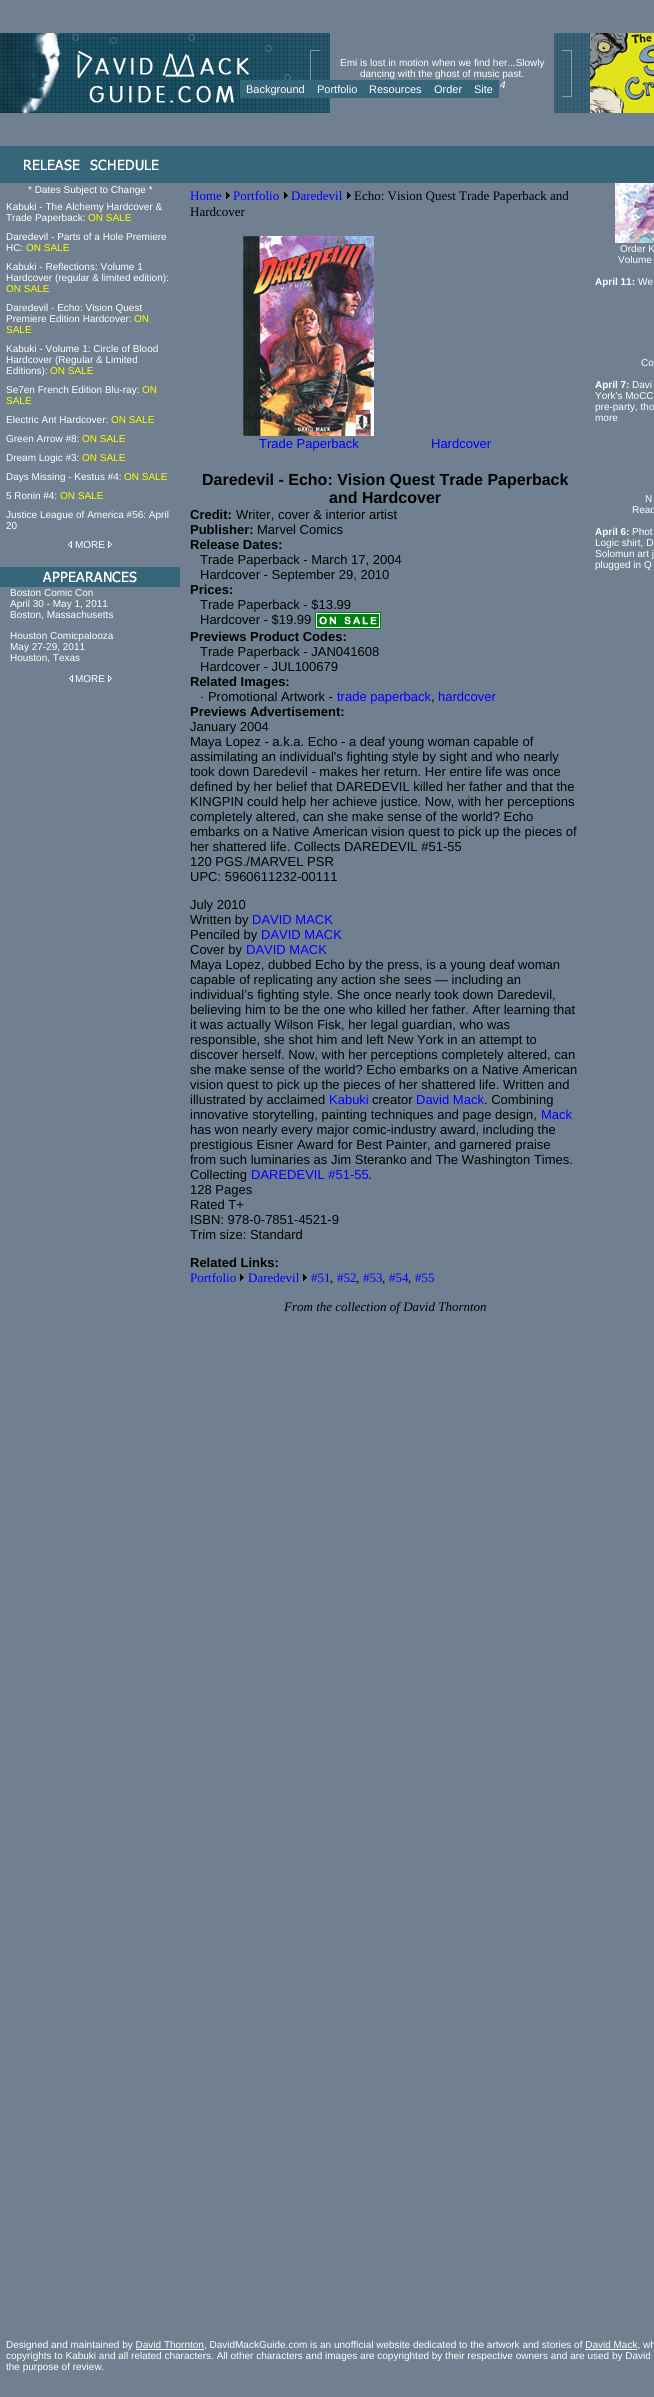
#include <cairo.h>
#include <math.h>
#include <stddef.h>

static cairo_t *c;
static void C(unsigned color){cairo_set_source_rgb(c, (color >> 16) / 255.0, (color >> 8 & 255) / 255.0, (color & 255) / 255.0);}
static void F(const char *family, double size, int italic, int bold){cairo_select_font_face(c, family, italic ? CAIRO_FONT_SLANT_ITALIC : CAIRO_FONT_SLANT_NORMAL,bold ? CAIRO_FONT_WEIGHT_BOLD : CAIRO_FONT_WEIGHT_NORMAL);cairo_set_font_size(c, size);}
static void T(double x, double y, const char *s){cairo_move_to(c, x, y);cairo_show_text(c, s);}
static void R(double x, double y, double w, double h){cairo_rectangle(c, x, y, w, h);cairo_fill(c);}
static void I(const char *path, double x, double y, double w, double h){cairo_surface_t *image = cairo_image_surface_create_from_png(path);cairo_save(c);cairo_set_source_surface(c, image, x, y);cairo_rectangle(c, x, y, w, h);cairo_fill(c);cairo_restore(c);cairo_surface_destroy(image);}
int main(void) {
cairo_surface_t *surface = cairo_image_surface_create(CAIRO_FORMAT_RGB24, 654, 2397);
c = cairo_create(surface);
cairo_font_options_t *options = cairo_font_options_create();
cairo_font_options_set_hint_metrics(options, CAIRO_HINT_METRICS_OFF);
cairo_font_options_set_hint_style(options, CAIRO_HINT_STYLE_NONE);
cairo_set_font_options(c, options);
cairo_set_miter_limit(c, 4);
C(0x708090);
cairo_paint(c);
I("1.png",0,33,330,80);
F("Liberation Sans",10,0,0);
C(0xffffff);
T(340,66,"Emi is lost in motion when we find her...Slowly");
T(360,77,"dancing with the ghost of music past.");
F("Liberation Sans",10,1,0);
T(500,88,"4");
I("2.png",554,33,36,80);
I("3.png",590,33,64,80);
C(0x356679);
R(0,146,654,37);
I("4.png",24,159,135,12);
F("Liberation Sans",10,0,0);
C(0xffffff);
T(28,193,"* Dates Subject to Change *");
T(6,210,"Kabuki - The Alchemy Hardcover &");
T(6,221,"Trade Paperback:");
C(0xffff00);
T(88,221,"ON SALE");
C(0xffffff);
T(6,240,"Daredevil - Parts of a Hole Premiere");
T(6,251,"HC:");
C(0xffff00);
T(26,251,"ON SALE");
C(0xffffff);
T(6,270,"Kabuki - Reflections: Volume 1");
T(6,281,"Hardcover (regular & limited edition):");
C(0xffff00);
T(6,292,"ON SALE");
C(0xffffff);
T(6,311,"Daredevil - Echo: Vision Quest");
T(6,322,"Premiere Edition Hardcover:");
C(0xffff00);
T(134,322,"ON");
T(6,333,"SALE");
C(0xffffff);
T(6,352,"Kabuki - Volume 1: Circle of Blood");
T(6,363,"Hardcover (Regular & Limited");
T(6,374,"Editions):");
C(0xffff00);
T(50,374,"ON SALE");
C(0xffffff);
T(6,393,"Se7en French Edition Blu-ray:");
C(0xffff00);
T(142,393,"ON");
T(6,404,"SALE");
C(0xffffff);
T(6,423,"Electric Ant Hardcover:");
C(0xffff00);
T(111,423,"ON SALE");
C(0xffffff);
T(6,442,"Green Arrow #8:");
C(0xffff00);
T(82,442,"ON SALE");
C(0xffffff);
T(6,461,"Dream Logic #3:");
C(0xffff00);
T(82,461,"ON SALE");
C(0xffffff);
T(6,480,"Days Missing - Kestus #4:");
C(0xffff00);
T(124,480,"ON SALE");
C(0xffffff);
T(6,499,"5 Ronin #4:");
C(0xffff00);
T(60,499,"ON SALE");
C(0xffffff);
T(6,518,"Justice League of America #56: April");
T(6,529,"20");
I("5.png",68,541,4,7);
T(75,548,"MORE");
I("6.png",108,541,4,7);
I("7.png",0,567,180,20);
T(10,596,"Boston Comic Con");
T(10,607,"April 30 - May 1, 2011");
T(10,618,"Boston, Massachusetts");
T(10,639,"Houston Comicpalooza");
T(10,650,"May 27-29, 2011");
T(10,661,"Houston, Texas");
I("5.png",69,675,4,7);
T(75,682,"MORE");
I("6.png",108,675,4,7);
F("Liberation Serif",13,0,0);
C(0x0000ff);
T(190,200,"Home");
I("8.png",226,192,4,7);
T(233,200,"Portfolio");
I("8.png",284,192,4,7);
T(291,200,"Daredevil");
I("8.png",347,192,4,7);
C(0x000000);
T(354,200,"Echo: Vision Quest Trade Paperback and");
T(190,216,"Hardcover");
I("9.png",243,236,131,200);
F("Liberation Sans",13,0,0);
C(0x0000ff);
T(259,448,"Trade Paperback");
T(431,448,"Hardcover");
F("Liberation Sans",16,0,1);
C(0x000000);
T(202,485,"Daredevil - Echo: Vision Quest Trade Paperback");
T(329,503,"and Hardcover");
F("Liberation Sans",13,0,1);
T(190,519,"Credit:");
F("Liberation Sans",13,0,0);
T(236,519,"Writer, cover & interior artist");
F("Liberation Sans",13,0,1);
T(190,534,"Publisher:");
F("Liberation Sans",13,0,0);
T(257,534,"Marvel Comics");
F("Liberation Sans",13,0,1);
T(190,549,"Release Dates:");
F("Liberation Sans",13,0,0);
T(200,564,"Trade Paperback - March 17, 2004");
T(200,579,"Hardcover - September 29, 2010");
F("Liberation Sans",13,0,1);
T(190,594,"Prices:");
F("Liberation Sans",13,0,0);
T(200,609,"Trade Paperback - $13.99");
T(200,624,"Hardcover - $19.99");
I("10.png",315,612,66,17);
F("Liberation Sans",13,0,1);
T(190,641,"Previews Product Codes:");
F("Liberation Sans",13,0,0);
T(200,656,"Trade Paperback - JAN041608");
T(200,671,"Hardcover - JUL100679");
F("Liberation Sans",13,0,1);
T(190,686,"Related Images:");
F("Liberation Sans",13,0,0);
T(200,701,"· Promotional Artwork -");
C(0x0000ff);
T(337,701,"trade paperback");
C(0x000000);
T(431,701,",");
C(0x0000ff);
T(438,701,"hardcover");
F("Liberation Sans",13,0,1);
C(0x000000);
T(190,716,"Previews Advertisement:");
F("Liberation Sans",13,0,0);
T(190,731,"January 2004");
T(190,746,"Maya Lopez - a.k.a. Echo - a deaf young woman capable of");
T(190,761,"assimilating an individual's fighting style by sight and who nearly");
T(190,776,"took down Daredevil - makes her return. Her entire life was once");
T(190,791,"defined by her belief that DAREDEVIL killed her father and that the");
T(190,806,"KINGPIN could help her achieve justice. Now, with her perceptions");
T(190,821,"completely altered, can she make sense of the world? Echo");
T(190,836,"embarks on a Native American vision quest to pick up the pieces of");
T(190,851,"her shattered life. Collects DAREDEVIL #51-55");
T(190,866,"120 PGS./MARVEL PSR");
T(190,881,"UPC: 5960611232-00111");
T(190,909,"July 2010");
T(190,924,"Written by");
C(0x0000ff);
T(252,924,"DAVID MACK");
C(0x000000);
T(190,939,"Penciled by");
C(0x0000ff);
T(261,939,"DAVID MACK");
C(0x000000);
T(190,954,"Cover by");
C(0x0000ff);
T(246,954,"DAVID MACK");
C(0x000000);
T(190,969,"Maya Lopez, dubbed Echo by the press, is a young deaf woman");
T(190,984,"capable of replicating any action she sees — including an");
T(190,999,"individual’s fighting style. She once nearly took down Daredevil,");
T(190,1014,"believing him to be the one who killed her father. After learning that");
T(190,1029,"it was actually Wilson Fisk, her legal guardian, who was");
T(190,1044,"responsible, she shot him and left New York in an attempt to");
T(190,1059,"discover herself. Now, with her perceptions completely altered, can");
T(190,1074,"she make sense of the world? Echo embarks on a Native American");
T(190,1089,"vision quest to pick up the pieces of her shattered life. Written and");
T(190,1104,"illustrated by acclaimed");
C(0x0000ff);
T(329,1104,"Kabuki");
C(0x000000);
T(372,1104,"creator");
C(0x0000ff);
T(416,1104,"David Mack");
C(0x000000);
T(484,1104,". Combining");
T(190,1119,"innovative storytelling, painting techniques and page design,");
C(0x0000ff);
T(541,1119,"Mack");
C(0x000000);
T(190,1134,"has won nearly every major comic-industry award, including the");
T(190,1149,"prestigious Eisner Award for Best Painter, and garnered praise");
T(190,1164,"from such luminaries as Jim Steranko and The Washington Times.");
T(190,1179,"Collecting");
C(0x0000ff);
T(251,1179,"DAREDEVIL #51-55");
C(0x000000);
T(368,1179,".");
T(190,1194,"128 Pages");
T(190,1209,"Rated T+");
T(190,1224,"ISBN: 978-0-7851-4521-9");
T(190,1239,"Trim size: Standard");
F("Liberation Sans",13,0,1);
T(190,1267,"Related Links:");
F("Liberation Serif",13,0,0);
C(0x0000ff);
T(190,1282,"Portfolio");
I("8.png",240,1274,4,7);
T(248,1282,"Daredevil");
I("8.png",303,1274,4,7);
T(311,1282,"#51");
T(337,1282,"#52");
T(363,1282,"#53");
T(389,1282,"#54");
T(415,1282,"#55");
C(0x000000);
T(330,1282,",");
T(356,1282,",");
T(382,1282,",");
T(408,1282,",");
F("Liberation Serif",13,1,0);
T(284,1311,"From the collection of David Thornton");
I("11.png",615,183,39,60);
F("Liberation Sans",10,0,0);
C(0xffffff);
T(620,252,"Order K");
T(618,263,"Volume");
F("Liberation Sans",10,0,1);
T(595,285,"April 11:");
F("Liberation Sans",10,0,0);
T(638,285,"We");
T(641,366,"Co");
F("Liberation Sans",10,0,1);
T(595,388,"April 7:");
F("Liberation Sans",10,0,0);
T(632,388,"Davi");
T(595,399,"York's MoCC");
T(595,410,"pre-party, tho");
T(595,421,"more");
T(645,502,"N");
T(632,513,"Read");
F("Liberation Sans",10,0,1);
T(595,535,"April 6:");
F("Liberation Sans",10,0,0);
T(632,535,"Phot");
T(595,546,"Logic shirt, D");
T(595,557,"Solomun art j");
T(595,568,"plugged in Q");
T(6,2348,"Designed and maintained by David Thornton, DavidMackGuide.com is an unofficial website dedicated to the artwork and stories of David Mack, wh");
R(136,2349,68,1);
R(585,2349,52,1);
T(6,2359,"copyrights to Kabuki and all related characters. All other characters and images are copyrighted by their respective owners and are used by David");
T(6,2370,"the purpose of review.");
C(0x356679);
R(240,80,259,18);
F("Liberation Sans",11,0,0);
C(0xffffff);
T(246,93,"Background");
T(317,93,"Portfolio");
T(369,93,"Resources");
T(434,93,"Order");
T(474,93,"Site");
cairo_surface_write_to_png(surface, "o.png");
cairo_font_options_destroy(options);
cairo_destroy(c);
cairo_surface_destroy(surface);
return 0;
}
